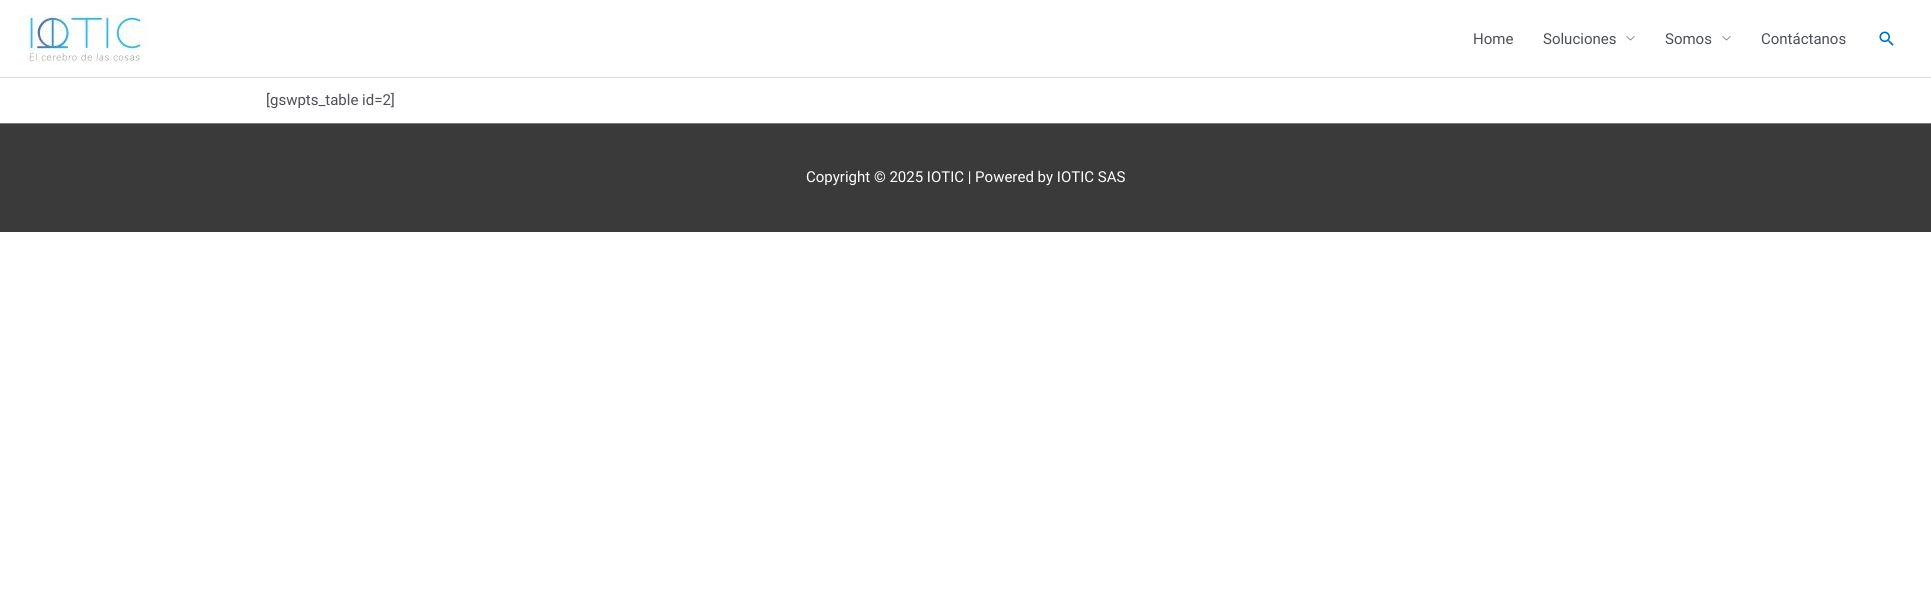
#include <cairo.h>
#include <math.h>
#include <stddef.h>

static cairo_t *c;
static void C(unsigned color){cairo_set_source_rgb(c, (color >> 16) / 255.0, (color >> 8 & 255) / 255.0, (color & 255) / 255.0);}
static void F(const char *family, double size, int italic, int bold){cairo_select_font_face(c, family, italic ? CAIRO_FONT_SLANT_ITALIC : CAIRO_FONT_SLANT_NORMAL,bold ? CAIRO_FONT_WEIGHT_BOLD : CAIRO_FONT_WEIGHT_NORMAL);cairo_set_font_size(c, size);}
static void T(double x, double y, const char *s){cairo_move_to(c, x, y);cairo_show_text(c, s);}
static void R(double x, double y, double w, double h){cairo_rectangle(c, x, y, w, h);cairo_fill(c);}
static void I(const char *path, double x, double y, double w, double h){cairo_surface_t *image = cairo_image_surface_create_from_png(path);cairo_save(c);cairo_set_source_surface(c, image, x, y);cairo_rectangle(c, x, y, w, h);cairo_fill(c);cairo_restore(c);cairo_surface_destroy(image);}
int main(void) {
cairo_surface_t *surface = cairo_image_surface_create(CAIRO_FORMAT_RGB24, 1931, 590);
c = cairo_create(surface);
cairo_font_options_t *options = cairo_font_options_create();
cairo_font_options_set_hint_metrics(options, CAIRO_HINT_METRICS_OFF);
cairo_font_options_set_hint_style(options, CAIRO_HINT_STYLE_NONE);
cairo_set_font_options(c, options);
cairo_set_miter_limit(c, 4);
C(0xffffff);
cairo_paint(c);
C(0xdddddd);
R(0,77,1931,1);
I("1.png",20,15,128,47);
F("Roboto",15,0,0);
C(0x4b4f58);
T(1473,44,"Home");
T(1543,44,"Soluciones");
I("2.png",1626,36,9,5);
T(1665,44,"Somos");
I("2.png",1722,36,9,5);
T(1761,44,"Contáctanos");
I("3.png",1879,31,15,15);
T(266,105,"[gswpts_table id=2]");
C(0x7a7a7a);
R(0,123,1931,1);
C(0x3a3a3a);
R(0,124,1931,108);
C(0xffffff);
T(806,182,"Copyright © 2025 IOTIC | Powered by IOTIC SAS");
cairo_surface_write_to_png(surface, "o.png");
cairo_font_options_destroy(options);
cairo_destroy(c);
cairo_surface_destroy(surface);
return 0;
}
